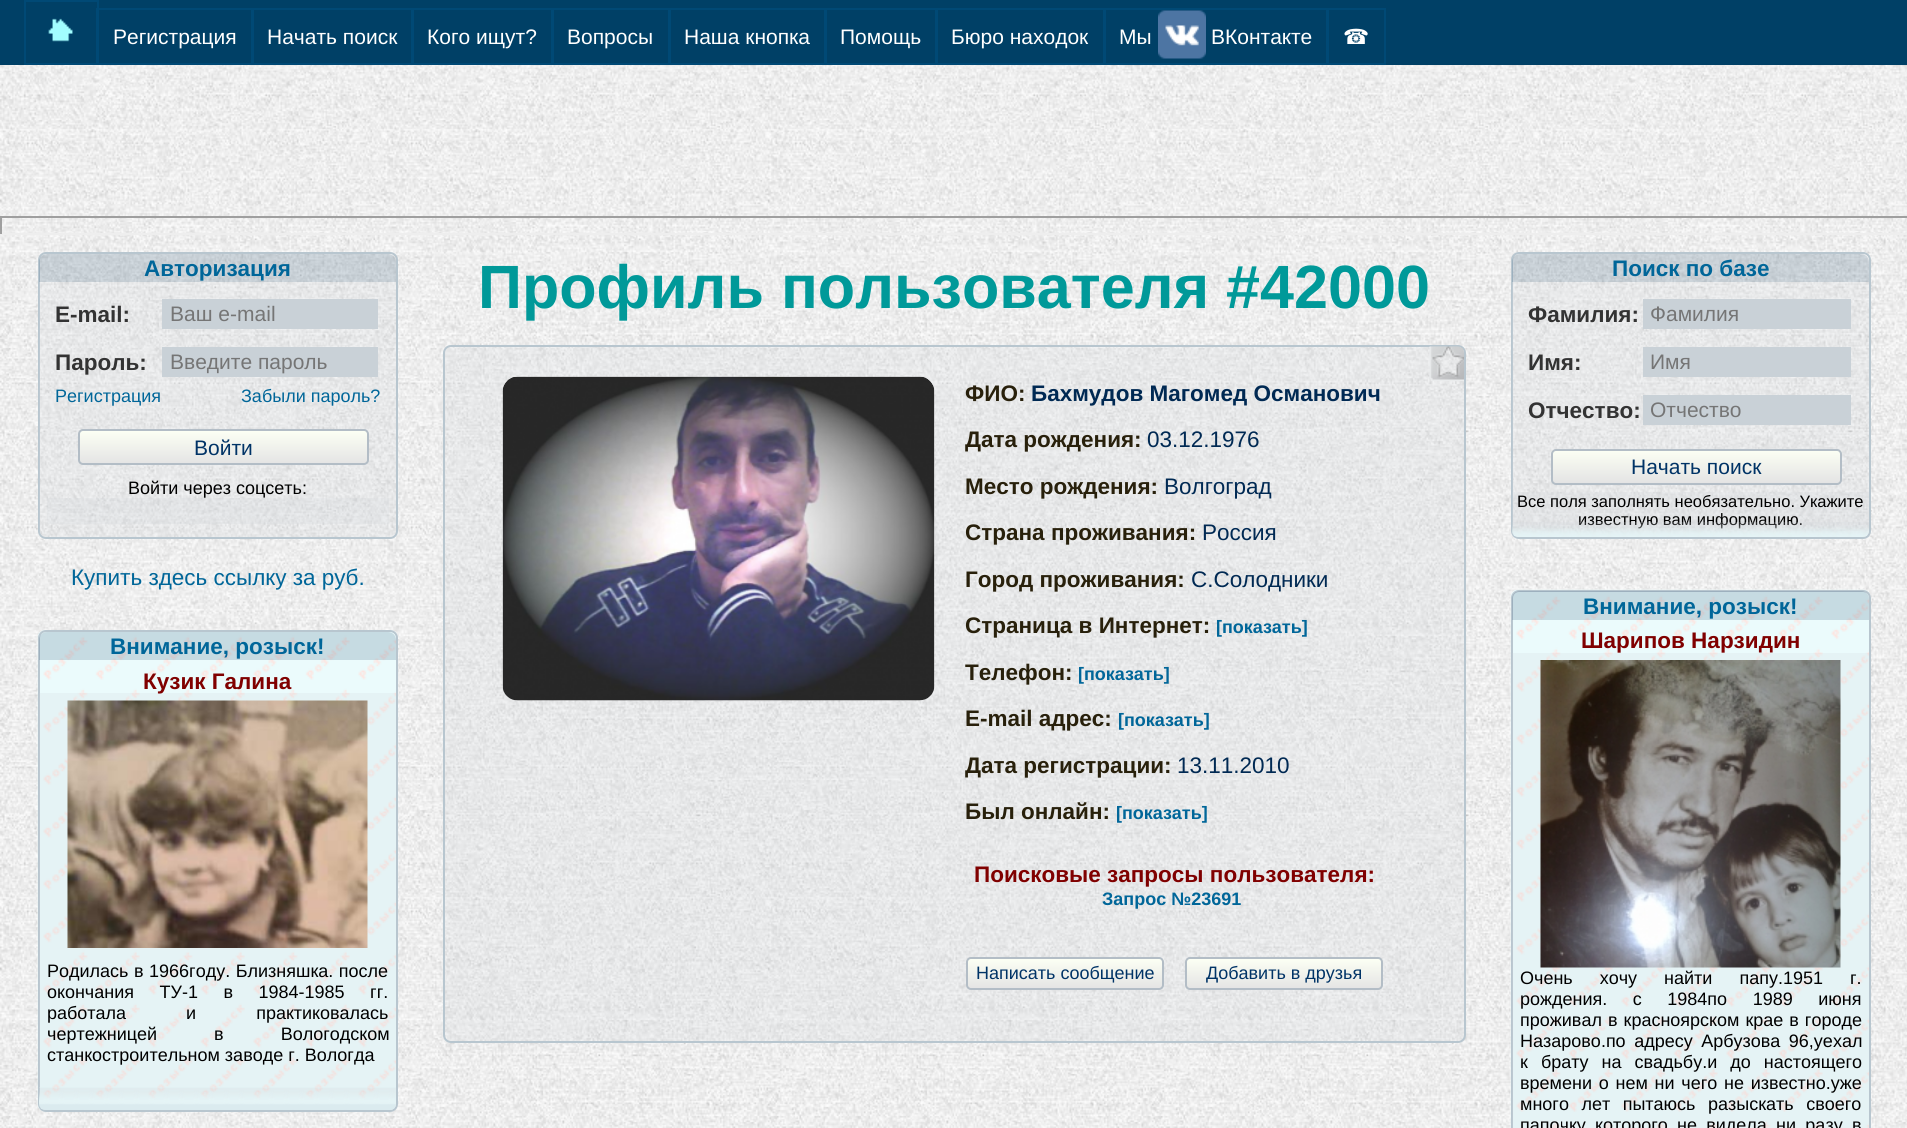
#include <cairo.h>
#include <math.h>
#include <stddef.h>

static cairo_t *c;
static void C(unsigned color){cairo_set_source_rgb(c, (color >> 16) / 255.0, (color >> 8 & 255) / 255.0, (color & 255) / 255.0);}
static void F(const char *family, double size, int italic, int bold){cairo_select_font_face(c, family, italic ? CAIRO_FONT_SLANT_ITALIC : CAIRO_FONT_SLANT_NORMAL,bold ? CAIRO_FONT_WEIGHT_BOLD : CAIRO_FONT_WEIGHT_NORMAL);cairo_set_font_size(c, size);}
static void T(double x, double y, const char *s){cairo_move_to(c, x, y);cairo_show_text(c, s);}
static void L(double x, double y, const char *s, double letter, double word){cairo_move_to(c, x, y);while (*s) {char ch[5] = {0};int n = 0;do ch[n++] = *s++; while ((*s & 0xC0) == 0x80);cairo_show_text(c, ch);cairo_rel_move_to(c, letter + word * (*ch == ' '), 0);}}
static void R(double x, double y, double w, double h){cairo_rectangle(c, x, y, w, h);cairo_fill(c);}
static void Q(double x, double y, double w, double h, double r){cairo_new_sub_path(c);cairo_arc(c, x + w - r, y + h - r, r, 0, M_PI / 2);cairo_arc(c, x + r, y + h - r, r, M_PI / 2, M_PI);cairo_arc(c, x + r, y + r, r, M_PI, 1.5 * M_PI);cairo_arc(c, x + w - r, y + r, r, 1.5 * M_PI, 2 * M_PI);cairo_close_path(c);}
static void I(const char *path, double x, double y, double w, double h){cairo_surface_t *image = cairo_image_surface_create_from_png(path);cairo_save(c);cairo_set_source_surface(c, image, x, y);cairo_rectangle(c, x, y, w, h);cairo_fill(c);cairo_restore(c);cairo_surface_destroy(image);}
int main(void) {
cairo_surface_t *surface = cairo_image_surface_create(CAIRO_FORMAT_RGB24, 1907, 1128);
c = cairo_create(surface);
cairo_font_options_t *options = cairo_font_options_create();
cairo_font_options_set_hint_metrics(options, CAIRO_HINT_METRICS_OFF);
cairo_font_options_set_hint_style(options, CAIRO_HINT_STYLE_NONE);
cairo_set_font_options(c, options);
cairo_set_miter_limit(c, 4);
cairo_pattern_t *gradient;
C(0xffffff);
cairo_paint(c);
I("1.png",0,65,1907,1063);
C(0x004066);
R(0,0,1907,65);
cairo_rectangle(c,25,1,73,63);
C(0x004975);
cairo_stroke(c);
I("2.png",48,18,25,24);
cairo_rectangle(c,97,9,156,55);
cairo_stroke(c);
F("Liberation Sans",21,0,0);
C(0xffffff);
T(113,44,"Регистрация");
cairo_rectangle(c,252,9,161,55);
C(0x004975);
cairo_stroke(c);
C(0xffffff);
T(267,44,"Начать поиск");
cairo_rectangle(c,412,9,141,55);
C(0x004975);
cairo_stroke(c);
C(0xffffff);
T(427,44,"Кого ищут?");
cairo_rectangle(c,552,9,118,55);
C(0x004975);
cairo_stroke(c);
C(0xffffff);
T(567,44,"Вопросы");
cairo_rectangle(c,669,9,157,55);
C(0x004975);
cairo_stroke(c);
C(0xffffff);
T(684,44,"Наша кнопка");
cairo_rectangle(c,825,9,112,55);
C(0x004975);
cairo_stroke(c);
C(0xffffff);
T(840,44,"Помощь");
cairo_rectangle(c,936,9,169,55);
C(0x004975);
cairo_stroke(c);
C(0xffffff);
T(951,44,"Бюро находок");
cairo_rectangle(c,1104,9,224,55);
C(0x004975);
cairo_stroke(c);
C(0xffffff);
T(1119,44,"Мы");
I("3.png",1158,10,48,49);
T(1211,44,"ВКонтакте");
cairo_rectangle(c,1327,9,58,55);
C(0x004975);
cairo_stroke(c);
F("DejaVu Sans",21,0,0);
C(0xffffff);
T(1343,44,"☎");
C(0x9f9f9f);
R(0,216,1907,2);
C(0xeeeeee);
R(0,233,1907,2);
C(0x9f9f9f);
R(0,216,2,18);
Q(39,253,358,285,7);
C(0xb8c6cf);
cairo_stroke(c);
cairo_set_source_rgba(c,0.2,0.365,0.478,0.2);
cairo_new_path(c);
cairo_move_to(c,47,254);
cairo_line_to(c,388,254);
cairo_curve_to(c,392.5,254,396,257.5,396,262);
cairo_line_to(c,396,282);
cairo_line_to(c,39,282);
cairo_line_to(c,39,262);
cairo_curve_to(c,39,257.5,42.5,254,47,254);
cairo_close_path(c);
cairo_fill(c);
F("Liberation Sans",22.5,0,1);
C(0x006699);
T(144,276,"Авторизация");
cairo_set_source_rgba(c,0.804,0.835,0.859,0.2);
cairo_new_path(c);
cairo_move_to(c,39,282);
cairo_line_to(c,396,282);
cairo_line_to(c,396,531);
cairo_curve_to(c,396,534.5,393.5,537,390,537);
cairo_line_to(c,45,537);
cairo_curve_to(c,41.5,537,39,534.5,39,531);
cairo_close_path(c);
cairo_fill(c);
C(0x333333);
T(55,322,"E-mail:");
C(0xc9d1d7);
R(162,299,216,30);
F("Liberation Sans",21,0,0);
C(0x757575);
T(170,321,"Ваш e-mail");
F("Liberation Sans",22.5,0,1);
C(0x333333);
T(55,370,"Пароль:");
C(0xc9d1d7);
R(162,347,216,30);
F("Liberation Sans",21,0,0);
C(0x757575);
T(170,369,"Введите пароль");
F("Liberation Sans",18,0,0);
C(0x006699);
T(55,402,"Регистрация");
T(241,402,"Забыли пароль?");
cairo_save(c);
Q(78,429,291,36,5);
cairo_clip(c);
gradient = cairo_pattern_create_linear(224,431,224,464);
cairo_pattern_add_color_stop_rgba(gradient,0,0.988,1,0.957,1);
cairo_pattern_add_color_stop_rgba(gradient,1,0.894,0.894,0.894,1);
cairo_set_source(c,gradient);
cairo_pattern_destroy(gradient);
R(78,431,291,33);
cairo_restore(c);
Q(79,430,289,34,4);
C(0xb3bdc6);
cairo_stroke(c);
F("Liberation Sans",21,0,0);
C(0x003366);
T(194,455,"Войти");
F("Liberation Sans",18,0,0);
C(0x000000);
T(128,494,"Войти через соцсеть:");
cairo_set_source_rgba(c,0.804,0.835,0.859,0.2);
R(47,498,342,26);
F("Liberation Sans",22.5,0,0);
C(0x006699);
T(71,585,"Купить здесь ссылку за руб.");
I("4.png",37,630,361,482);
Q(39,631,358,480,7);
C(0xb8c6cf);
cairo_stroke(c);
cairo_set_source_rgba(c,0.2,0.365,0.478,0.2);
cairo_new_path(c);
cairo_move_to(c,47,632);
cairo_line_to(c,388,632);
cairo_curve_to(c,392.5,632,396,635.5,396,640);
cairo_line_to(c,396,660);
cairo_line_to(c,39,660);
cairo_line_to(c,39,640);
cairo_curve_to(c,39,635.5,42.5,632,47,632);
cairo_close_path(c);
cairo_fill(c);
F("Liberation Sans",22.5,0,1);
C(0x006699);
T(110,654,"Внимание, розыск!");
C(0x800000);
T(143,689,"Кузик Галина");
cairo_set_source_rgba(c,0.804,0.835,0.859,0.2);
R(39,693,357,267);
I("5.png",67,700,301,248);
cairo_new_path(c);
cairo_move_to(c,39,960);
cairo_line_to(c,396,960);
cairo_line_to(c,396,1104);
cairo_curve_to(c,396,1107.5,393.5,1110,390,1110);
cairo_line_to(c,45,1110);
cairo_curve_to(c,41.5,1110,39,1107.5,39,1104);
cairo_close_path(c);
cairo_fill(c);
F("Liberation Sans",18,0,0);
C(0x000000);
L(47,977,"Родилась в 1966году. Близняшка. после",0,.5);
L(47,998,"окончания ТУ-1 в 1984-1985 гг.",0,20.5);
L(47,1019,"работала и практиковалась",0,55);
L(47,1040,"чертежницей в Вологодском",0,52);
T(47,1061,"станкостроительном заводе г. Вологда");
cairo_set_source_rgba(c,0.804,0.835,0.859,0.2);
cairo_new_path(c);
cairo_move_to(c,39,1088);
cairo_line_to(c,396,1088);
cairo_line_to(c,396,1104);
cairo_curve_to(c,396,1107.5,393.5,1110,390,1110);
cairo_line_to(c,45,1110);
cairo_curve_to(c,41.5,1110,39,1107.5,39,1104);
cairo_close_path(c);
cairo_fill(c);
I("6.png",39,1087,357,23);
F("Liberation Sans",61.1,0,1);
C(0x009999);
T(478,308,"Профиль пользователя #42000");
cairo_set_source_rgba(c,0.804,0.835,0.859,0.2);
Q(444,346,1021,696,7);
cairo_fill_preserve(c);
C(0xb8c6cf);
cairo_stroke(c);
I("7.png",1429,346,35,35);
I("8.png",502,376,433,325);
F("Liberation Sans",22.5,0,1);
C(0x28200b);
T(965,401,"ФИО:");
C(0x002953);
T(1031,401,"Бахмудов Магомед Османович");
C(0x28200b);
T(965,447,"Дата рождения:");
F("Liberation Sans",22.5,0,0);
C(0x002953);
T(1147,447,"03.12.1976");
F("Liberation Sans",22.5,0,1);
C(0x28200b);
T(965,494,"Место рождения:");
F("Liberation Sans",22.5,0,0);
C(0x002953);
T(1164,494,"Волгоград");
F("Liberation Sans",22.5,0,1);
C(0x28200b);
T(965,540,"Страна проживания:");
F("Liberation Sans",22.5,0,0);
C(0x002953);
T(1202,540,"Россия");
F("Liberation Sans",22.5,0,1);
C(0x28200b);
T(965,587,"Город проживания:");
F("Liberation Sans",22.5,0,0);
C(0x002953);
T(1191,587,"С.Солодники");
F("Liberation Sans",22.5,0,1);
C(0x28200b);
T(965,633,"Страница в Интернет:");
F("Liberation Sans",18,0,1);
C(0x006699);
T(1216,633,"[показать]");
F("Liberation Sans",22.5,0,1);
C(0x28200b);
T(965,680,"Телефон:");
F("Liberation Sans",18,0,1);
C(0x006699);
T(1078,680,"[показать]");
F("Liberation Sans",22.5,0,1);
C(0x28200b);
T(965,726,"E-mail адрес:");
F("Liberation Sans",18,0,1);
C(0x006699);
T(1118,726,"[показать]");
F("Liberation Sans",22.5,0,1);
C(0x28200b);
T(965,773,"Дата регистрации:");
F("Liberation Sans",22.5,0,0);
C(0x002953);
T(1177,773,"13.11.2010");
F("Liberation Sans",22.5,0,1);
C(0x28200b);
T(965,819,"Был онлайн:");
F("Liberation Sans",18,0,1);
C(0x006699);
T(1116,819,"[показать]");
F("Liberation Sans",22.5,0,1);
C(0x800000);
T(974,882,"Поисковые запросы пользователя:");
F("Liberation Sans",18,0,1);
C(0x006699);
T(1102,905,"Запрос №23691");
cairo_save(c);
Q(966,957,198,33,5);
cairo_clip(c);
gradient = cairo_pattern_create_linear(1065,959,1065,989);
cairo_pattern_add_color_stop_rgba(gradient,0,0.988,1,0.957,1);
cairo_pattern_add_color_stop_rgba(gradient,1,0.894,0.894,0.894,1);
cairo_set_source(c,gradient);
cairo_pattern_destroy(gradient);
R(966,959,198,30);
cairo_restore(c);
Q(967,958,196,31,4);
C(0xb3bdc6);
cairo_stroke(c);
F("Liberation Sans",18,0,0);
C(0x003366);
T(976,979,"Написать сообщение");
cairo_save(c);
Q(1185,957,198,33,5);
cairo_clip(c);
gradient = cairo_pattern_create_linear(1284,959,1284,989);
cairo_pattern_add_color_stop_rgba(gradient,0,0.988,1,0.957,1);
cairo_pattern_add_color_stop_rgba(gradient,1,0.894,0.894,0.894,1);
cairo_set_source(c,gradient);
cairo_pattern_destroy(gradient);
R(1185,959,198,30);
cairo_restore(c);
Q(1186,958,196,31,4);
C(0xb3bdc6);
cairo_stroke(c);
C(0x003366);
T(1206,979,"Добавить в друзья");
Q(1512,253,358,285,7);
C(0xb8c6cf);
cairo_stroke(c);
cairo_set_source_rgba(c,0.2,0.365,0.478,0.2);
cairo_new_path(c);
cairo_move_to(c,1520,254);
cairo_line_to(c,1861,254);
cairo_curve_to(c,1865.5,254,1869,257.5,1869,262);
cairo_line_to(c,1869,282);
cairo_line_to(c,1512,282);
cairo_line_to(c,1512,262);
cairo_curve_to(c,1512,257.5,1515.5,254,1520,254);
cairo_close_path(c);
cairo_fill(c);
F("Liberation Sans",22.5,0,1);
C(0x006699);
T(1612,276,"Поиск по базе");
cairo_set_source_rgba(c,0.804,0.835,0.859,0.2);
cairo_new_path(c);
cairo_move_to(c,1512,282);
cairo_line_to(c,1869,282);
cairo_line_to(c,1869,531);
cairo_curve_to(c,1869,534.5,1866.5,537,1863,537);
cairo_line_to(c,1518,537);
cairo_curve_to(c,1514.5,537,1512,534.5,1512,531);
cairo_close_path(c);
cairo_fill(c);
C(0x333333);
T(1528,322,"Фамилия:");
C(0xc9d1d7);
R(1643,299,208,30);
F("Liberation Sans",21,0,0);
C(0x757575);
T(1650,321,"Фамилия");
F("Liberation Sans",22.5,0,1);
C(0x333333);
T(1528,370,"Имя:");
C(0xc9d1d7);
R(1643,347,208,30);
F("Liberation Sans",21,0,0);
C(0x757575);
T(1650,369,"Имя");
F("Liberation Sans",22.5,0,1);
C(0x333333);
T(1528,418,"Отчество:");
C(0xc9d1d7);
R(1643,395,208,30);
F("Liberation Sans",21,0,0);
C(0x757575);
T(1650,417,"Отчество");
cairo_save(c);
Q(1551,449,291,36,5);
cairo_clip(c);
gradient = cairo_pattern_create_linear(1697,450,1697,483);
cairo_pattern_add_color_stop_rgba(gradient,0,0.988,1,0.957,1);
cairo_pattern_add_color_stop_rgba(gradient,1,0.894,0.894,0.894,1);
cairo_set_source(c,gradient);
cairo_pattern_destroy(gradient);
R(1551,450,291,33);
cairo_restore(c);
Q(1552,450,289,34,4);
C(0xb3bdc6);
cairo_stroke(c);
C(0x003366);
T(1631,474,"Начать поиск");
cairo_set_source_rgba(c,0.804,0.835,0.859,0.2);
cairo_new_path(c);
cairo_move_to(c,1512,492);
cairo_line_to(c,1869,492);
cairo_line_to(c,1869,531);
cairo_curve_to(c,1869,534.5,1866.5,537,1863,537);
cairo_line_to(c,1518,537);
cairo_curve_to(c,1514.5,537,1512,534.5,1512,531);
cairo_close_path(c);
cairo_fill(c);
F("Liberation Sans",16.5,0,0);
C(0x000000);
T(1517,507,"Все поля заполнять необязательно. Укажите");
T(1578,525,"известную вам информацию.");
cairo_set_source_rgba(c,0.804,0.835,0.859,0.2);
cairo_new_path(c);
cairo_move_to(c,1512,522);
cairo_line_to(c,1869,522);
cairo_line_to(c,1869,531);
cairo_curve_to(c,1869,534.5,1866.5,537,1863,537);
cairo_line_to(c,1518,537);
cairo_curve_to(c,1514.5,537,1512,534.5,1512,531);
cairo_close_path(c);
cairo_fill(c);
I("9.png",1512,524,357,13);
I("10.png",1510,589,361,539);
Q(1512,591,358,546,7);
C(0xb8c6cf);
cairo_stroke(c);
cairo_set_source_rgba(c,0.2,0.365,0.478,0.2);
cairo_new_path(c);
cairo_move_to(c,1520,591);
cairo_line_to(c,1861,591);
cairo_curve_to(c,1865.5,591,1869,594.5,1869,599);
cairo_line_to(c,1869,620);
cairo_line_to(c,1512,620);
cairo_line_to(c,1512,599);
cairo_curve_to(c,1512,594.5,1515.5,591,1520,591);
cairo_close_path(c);
cairo_fill(c);
F("Liberation Sans",22.5,0,1);
C(0x006699);
T(1583,614,"Внимание, розыск!");
C(0x800000);
T(1581,648,"Шарипов Нарзидин");
cairo_set_source_rgba(c,0.804,0.835,0.859,0.2);
R(1512,653,357,315);
I("11.png",1540,660,301,308);
R(1512,968,357,160);
F("Liberation Sans",18,0,0);
C(0x000000);
L(1520,984,"Очень хочу найти папу.1951 г.",0,22);
L(1520,1005,"рождения. с 1984по 1989 июня",0,20.5);
L(1520,1026,"проживал в красноярском крае в городе",0,1);
L(1520,1047,"Назарово.по адресу Арбузова 96,уехал",0,3.5);
L(1520,1068,"к брату на свадьбу.и до настоящего",0,8);
L(1520,1089,"времени о нем ни чего не известно.уже",0,1.75);
L(1520,1110,"много лет пытаюсь разыскать своего",0,7.5);
L(1520,1131,"папочку которого не видела ни разу в",0,4.25);
cairo_surface_write_to_png(surface, "o.png");
cairo_font_options_destroy(options);
cairo_destroy(c);
cairo_surface_destroy(surface);
return 0;
}
